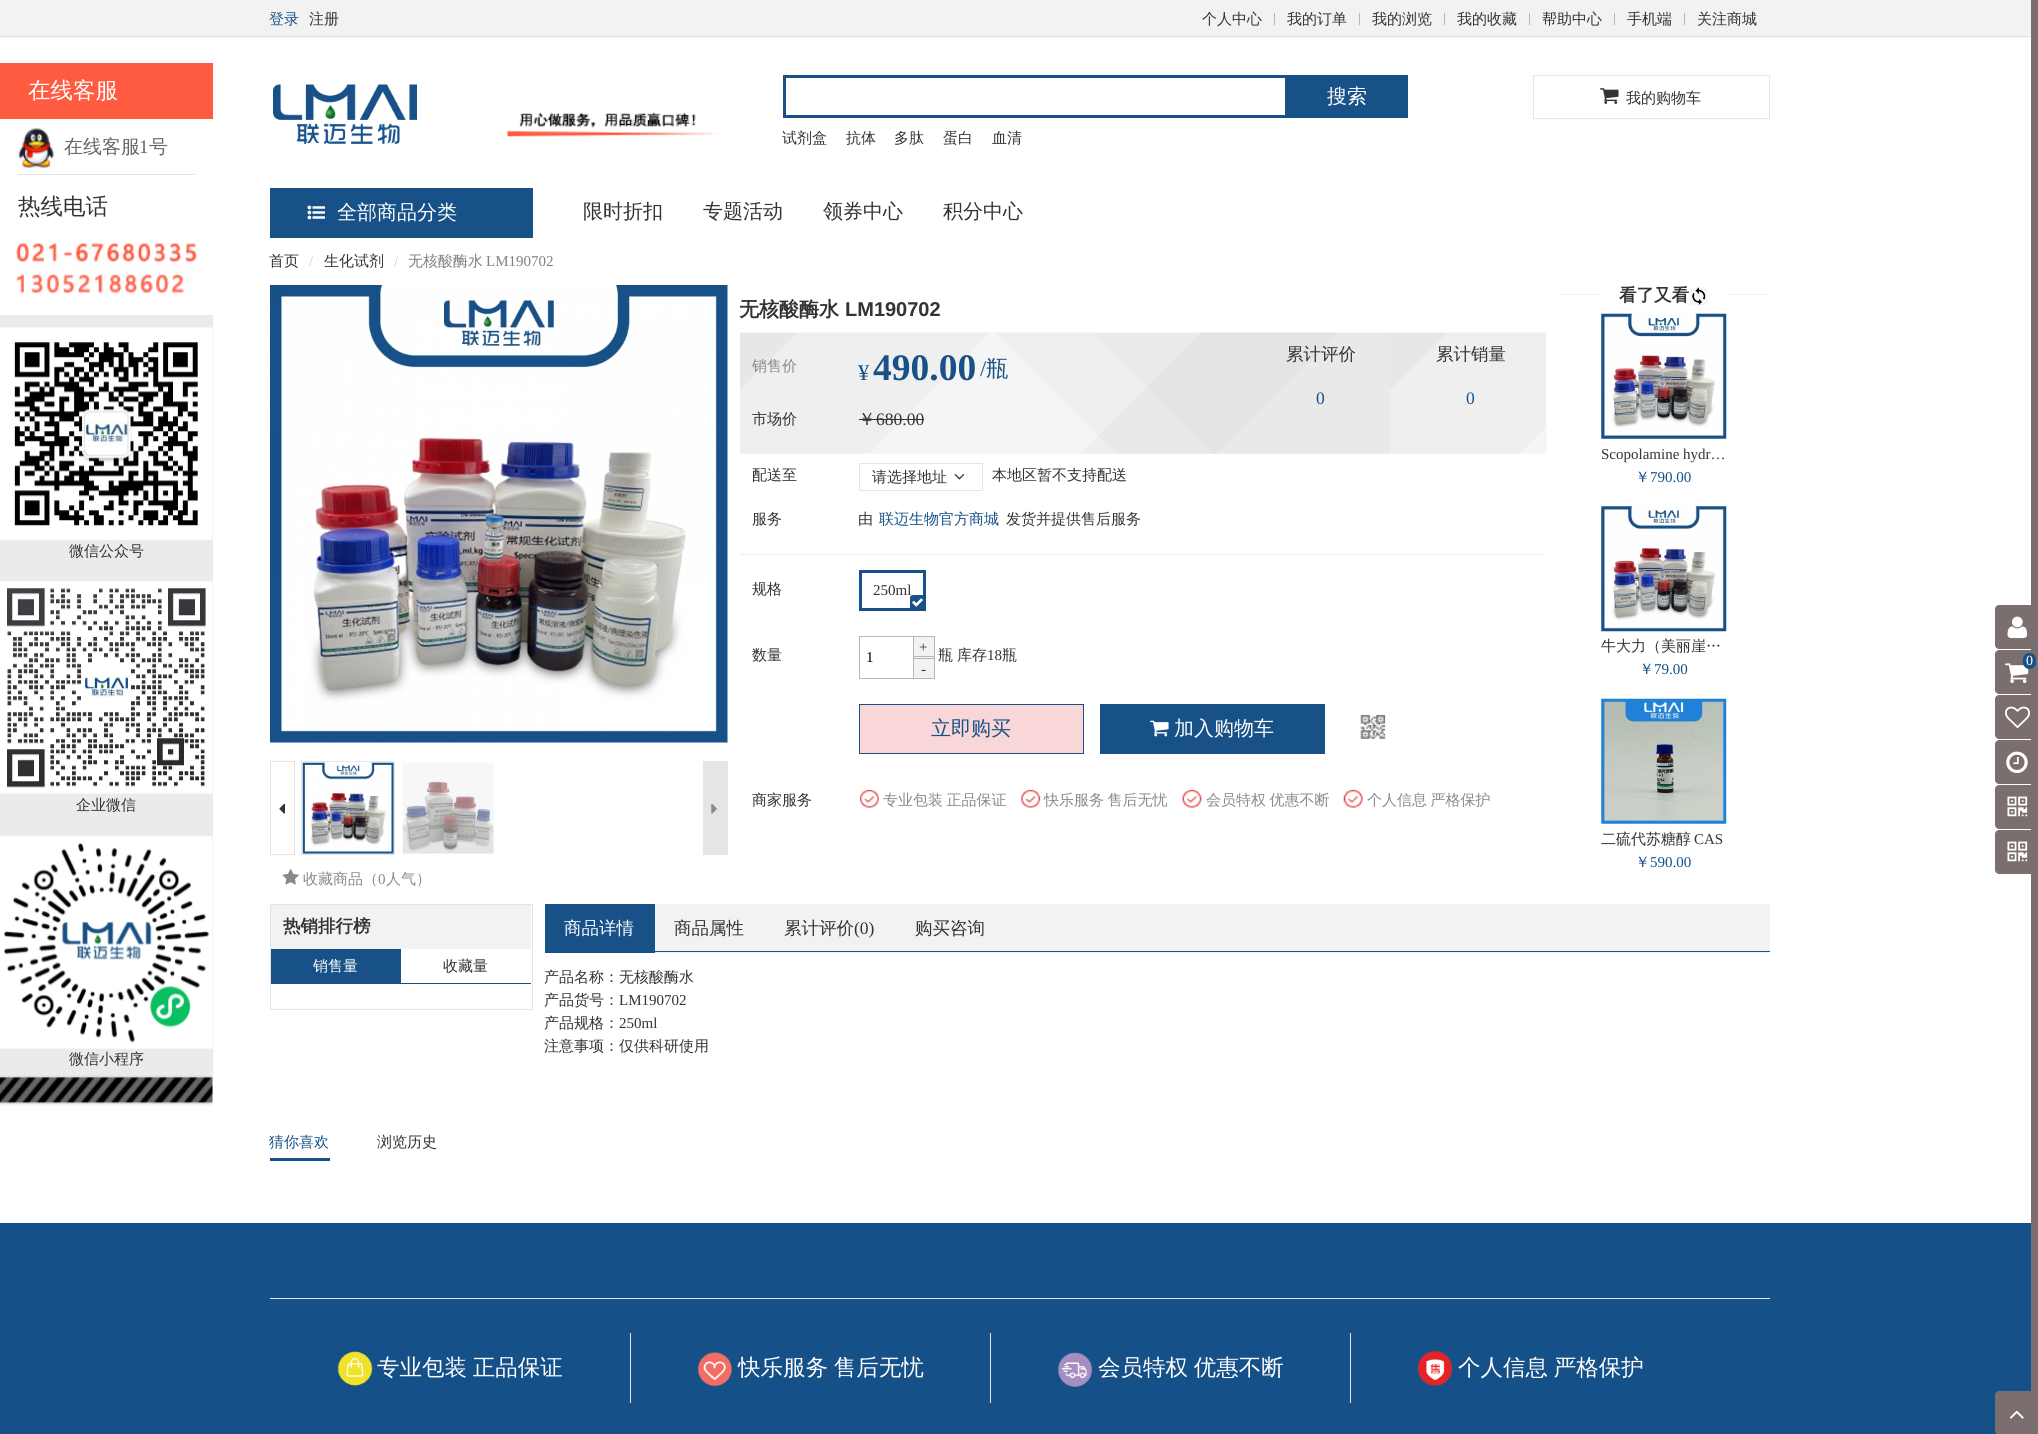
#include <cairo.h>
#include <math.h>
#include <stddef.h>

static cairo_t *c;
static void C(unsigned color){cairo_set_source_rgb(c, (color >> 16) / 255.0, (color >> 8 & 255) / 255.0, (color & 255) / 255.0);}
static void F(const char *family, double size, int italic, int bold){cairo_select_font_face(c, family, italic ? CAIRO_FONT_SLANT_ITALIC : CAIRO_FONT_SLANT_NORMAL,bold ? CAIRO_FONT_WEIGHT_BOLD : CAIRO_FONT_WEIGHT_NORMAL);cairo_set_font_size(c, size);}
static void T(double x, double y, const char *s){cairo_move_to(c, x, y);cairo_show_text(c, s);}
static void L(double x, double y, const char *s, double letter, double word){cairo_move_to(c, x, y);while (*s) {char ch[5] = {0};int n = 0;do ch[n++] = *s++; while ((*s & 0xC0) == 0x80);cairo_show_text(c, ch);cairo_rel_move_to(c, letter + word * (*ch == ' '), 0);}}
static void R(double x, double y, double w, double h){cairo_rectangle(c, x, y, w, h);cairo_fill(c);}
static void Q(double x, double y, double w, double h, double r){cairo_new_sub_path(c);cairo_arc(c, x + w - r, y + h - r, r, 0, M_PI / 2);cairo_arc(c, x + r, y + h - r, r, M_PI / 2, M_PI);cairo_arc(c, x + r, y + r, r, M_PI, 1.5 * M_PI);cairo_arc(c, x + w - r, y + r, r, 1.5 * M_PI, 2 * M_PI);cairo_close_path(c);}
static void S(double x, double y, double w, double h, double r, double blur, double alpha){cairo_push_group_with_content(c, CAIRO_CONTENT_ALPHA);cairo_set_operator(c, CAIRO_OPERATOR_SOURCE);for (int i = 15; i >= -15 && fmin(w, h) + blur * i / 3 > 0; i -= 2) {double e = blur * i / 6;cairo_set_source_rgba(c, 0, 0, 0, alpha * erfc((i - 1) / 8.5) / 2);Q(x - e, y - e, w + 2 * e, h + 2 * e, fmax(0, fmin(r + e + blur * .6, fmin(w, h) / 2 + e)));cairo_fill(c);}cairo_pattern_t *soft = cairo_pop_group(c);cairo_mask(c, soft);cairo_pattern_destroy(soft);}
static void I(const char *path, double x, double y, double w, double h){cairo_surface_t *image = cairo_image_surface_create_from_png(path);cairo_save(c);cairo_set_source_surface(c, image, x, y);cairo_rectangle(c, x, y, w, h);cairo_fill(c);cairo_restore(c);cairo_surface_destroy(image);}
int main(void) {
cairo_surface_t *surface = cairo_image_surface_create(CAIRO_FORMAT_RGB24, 2038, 1434);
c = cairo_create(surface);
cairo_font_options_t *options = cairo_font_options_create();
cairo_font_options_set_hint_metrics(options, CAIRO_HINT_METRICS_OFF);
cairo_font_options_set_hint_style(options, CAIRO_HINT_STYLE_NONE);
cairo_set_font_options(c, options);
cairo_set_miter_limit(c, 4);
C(0xffffff);
cairo_paint(c);
C(0x000000);
S(-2,119,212,959,0,2,.25);
C(0xff5b41);
R(0,63,213,56);
F("WenQuanYi Zen Hei Medium",22.5,0,0);
C(0xffffff);
T(28,98,"在线客服");
R(0,119,213,196);
C(0xe3e3e3);
R(18,174,177,1);
I("1.png",18,128,37,42);
F("WenQuanYi Zen Hei Medium",19,0,0);
C(0x666666);
T(64,153,"在线客服");
F("Liberation Serif",19,0,0);
T(139,153,"1");
F("WenQuanYi Zen Hei Medium",19,0,0);
T(149,153,"号");
F("WenQuanYi Zen Hei Medium",22.5,0,0);
C(0x333333);
T(18,214,"热线电话");
I("2.png",16,243,181,51);
C(0xebebeb);
R(0,315,213,763);
I("3.png",0,327,213,213);
F("WenQuanYi Zen Hei Medium",15,0,0);
C(0x333333);
T(69,556,"微信公众号");
I("4.png",0,581,213,213);
T(76,810,"企业微信");
I("5.png",0,836,213,213);
T(69,1064,"微信小程序");
C(0x000000);
S(-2,1078,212,25,0,2,.25);
I("6.png",0,1077,213,27);
C(0xf2f2f2);
R(0,0,2031,38);
C(0xe5e5e5);
R(0,36,2038,1);
C(0x175188);
T(269,24,"登录");
C(0x333333);
T(309,24,"注册");
T(1202,24,"个人中心");
C(0xb7b7b7);
R(1274,13,1,12);
C(0x333333);
T(1287,24,"我的订单");
C(0xb7b7b7);
R(1359,13,1,12);
C(0x333333);
T(1372,24,"我的浏览");
C(0xb7b7b7);
R(1444,13,1,12);
C(0x333333);
T(1457,24,"我的收藏");
C(0xb7b7b7);
R(1529,13,1,12);
C(0x333333);
T(1542,24,"帮助中心");
C(0xb7b7b7);
R(1614,13,1,12);
C(0x333333);
T(1627,24,"手机端");
C(0xb7b7b7);
R(1684,13,1,12);
C(0x333333);
T(1697,24,"关注商城");
I("7.png",273,84,144,60);
cairo_rectangle(c,784.5,76.5,502,40);
C(0x175188);
cairo_set_line_width(c,3);
cairo_stroke(c);
R(1288,75,120,43);
F("WenQuanYi Zen Hei Medium",20,0,0);
C(0xffffff);
T(1327,103,"搜索");
F("WenQuanYi Zen Hei Medium",15,0,0);
C(0x333333);
T(782,143,"试剂盒");
T(846,143,"抗体");
T(894,143,"多肽");
T(943,143,"蛋白");
T(992,143,"血清");
cairo_rectangle(c,1533.5,75.5,236,43);
C(0xe5e5e5);
cairo_set_line_width(c,1);
cairo_stroke(c);
I("8.png",1600,88,19,16);
C(0x333333);
T(1626,103,"我的购物车");
I("9.png",507,112,213,25);
C(0x175188);
R(270,188,263,50);
I("10.png",307,205,18,15);
F("WenQuanYi Zen Hei Medium",20,0,0);
C(0xffffff);
T(337,219,"全部商品分类");
C(0x333333);
T(583,218,"限时折扣");
T(703,218,"专题活动");
T(823,218,"领券中心");
T(943,218,"积分中心");
F("WenQuanYi Zen Hei Medium",15,0,0);
T(269,266,"首页");
F("Liberation Serif",15,0,0);
C(0xcccccc);
T(309,266,"/");
F("WenQuanYi Zen Hei Medium",15,0,0);
C(0x333333);
T(324,266,"生化试剂");
F("Liberation Serif",15,0,0);
C(0xcccccc);
T(394,266,"/");
F("WenQuanYi Zen Hei Medium",15,0,0);
C(0x808080);
T(408,266,"无核酸酶水");
F("Liberation Serif",15,0,0);
T(486,266,"LM190702");
F("WenQuanYi Zen Hei",20,0,1);
C(0x333333);
T(739,316,"无核酸酶水");
F("Liberation Sans",20,0,1);
T(845,316,"LM190702");
I("11.png",740,332,807,122);
F("WenQuanYi Zen Hei Medium",15,0,0);
C(0x898989);
T(752,371,"销售价");
F("Liberation Serif",22.5,0,0);
C(0x175188);
T(858,380,"¥");
F("Liberation Serif",37.5,0,1);
T(873,380,"490.00");
F("Liberation Serif",22.5,0,0);
T(980,376,"/");
F("WenQuanYi Zen Hei Medium",22.5,0,0);
T(986,376,"瓶");
F("WenQuanYi Zen Hei Medium",17.5,0,0);
C(0x333333);
T(1286,360,"累计评价");
F("Liberation Serif",17.5,0,0);
C(0x175188);
T(1316,404,"0");
F("WenQuanYi Zen Hei Medium",17.5,0,0);
C(0x333333);
T(1436,360,"累计销量");
F("Liberation Serif",17.5,0,0);
C(0x175188);
T(1466,404,"0");
F("WenQuanYi Zen Hei Medium",15,0,0);
C(0x333333);
T(752,424,"市场价");
F("WenQuanYi Zen Hei Medium",17.5,0,0);
T(858,425,"￥");
F("Liberation Serif",17.5,0,0);
T(876,425,"680.00");
R(859,419,65,1);
F("WenQuanYi Zen Hei Medium",15,0,0);
T(752,480,"配送至");
cairo_rectangle(c,859.5,463.5,123,27);
C(0xe5e5e5);
cairo_stroke(c);
C(0x333333);
T(872,482,"请选择地址");
I("12.png",954,473,11,7);
T(992,480,"本地区暂不支持配送");
T(752,524,"服务");
T(858,524,"由");
C(0x175188);
T(879,524,"联迈生物官方商城");
C(0x333333);
T(1006,524,"发货并提供售后服务");
cairo_new_path(c);
cairo_move_to(c,740,554.5);
cairo_line_to(c,1546,554.5);
C(0xe5e5e5);
cairo_set_line_width(c,1.2);
cairo_set_dash(c,(double[]){1.25,1.25},2,0);
cairo_stroke(c);
C(0x333333);
T(752,594,"规格");
cairo_rectangle(c,860.5,571.5,64,38);
C(0x175188);
cairo_set_line_width(c,3);
cairo_set_dash(c,NULL,0,0);
cairo_stroke(c);
F("Liberation Serif",15,0,0);
C(0x333333);
T(873,595,"250ml");
I("13.png",910,595,13,13);
F("WenQuanYi Zen Hei Medium",15,0,0);
T(752,660,"数量");
cairo_rectangle(c,859.5,636.5,54,42);
C(0xb7b7b7);
cairo_set_line_width(c,1);
cairo_stroke(c);
F("Liberation Serif",15,0,0);
C(0x000000);
T(866,662,"1");
C(0xf2f2f2);
R(914,637,20,21);
C(0xb7b7b7);
R(914,636,21,1);
R(934,636,1,22);
R(914,656,21,1);
C(0x333333);
T(919,652,"+");
C(0xf2f2f2);
R(914,659,20,19);
C(0xb7b7b7);
R(914,658,21,1);
R(934,658,1,21);
R(914,678,21,1);
C(0x333333);
T(921,674,"-");
F("WenQuanYi Zen Hei Medium",15,0,0);
T(938,660,"瓶");
T(957,660,"库存");
F("Liberation Serif",15,0,0);
T(987,660,"18");
F("WenQuanYi Zen Hei Medium",15,0,0);
T(1002,660,"瓶");
C(0xf9d6d7);
cairo_rectangle(c,859.5,704.5,224,49);
cairo_fill_preserve(c);
C(0x175188);
cairo_stroke(c);
F("WenQuanYi Zen Hei Medium",20,0,0);
T(931,735,"立即购买");
R(1100,704,225,50);
I("14.png",1150,720,19,17);
C(0xffffff);
T(1174,735,"加入购物车");
I("15.png",1360,714,26,25);
F("WenQuanYi Zen Hei Medium",15,0,0);
C(0x333333);
T(752,805,"商家服务");
I("16.png",859,789,20,19);
C(0x898989);
L(883,805,"专业包装 正品保证",0,-1);
I("17.png",1021,789,20,19);
L(1044,805,"快乐服务 售后无忧",0,-1);
I("18.png",1182,789,20,19);
L(1206,805,"会员特权 优惠不断",0,-1);
I("19.png",1343,789,20,19);
L(1367,805,"个人信息 严格保护",0,-1);
C(0xf1f1f1);
R(1558,294,43,1);
F("WenQuanYi Zen Hei",17.5,0,1);
C(0x333333);
T(1619,301,"看了又看");
I("20.png",1690,287,18,18);
C(0xf1f1f1);
R(1726,294,44,1);
I("21.png",1601,313,126,126);
F("Liberation Serif",15,0,0);
C(0x333333);
T(1601,459,"Scopolamine hydr…");
F("WenQuanYi Zen Hei Medium",15,0,0);
C(0x175188);
T(1635,482,"￥");
F("Liberation Serif",15,0,0);
T(1650,482,"790.00");
I("22.png",1601,506,126,126);
F("WenQuanYi Zen Hei Medium",15,0,0);
C(0x333333);
T(1601,651,"牛大力（美丽崖…");
C(0x175188);
T(1639,674,"￥");
F("Liberation Serif",15,0,0);
T(1654,674,"79.00");
I("23.png",1601,698,126,126);
F("WenQuanYi Zen Hei Medium",15,0,0);
C(0x333333);
T(1601,844,"二硫代苏糖醇");
F("Liberation Serif",15,0,0);
T(1694,844,"CAS");
F("WenQuanYi Zen Hei Medium",15,0,0);
C(0x175188);
T(1635,867,"￥");
F("Liberation Serif",15,0,0);
T(1650,867,"590.00");
I("24.png",270,285,458,458);
cairo_rectangle(c,270.5,761.5,24,93);
C(0xe5e5e5);
cairo_stroke(c);
I("25.png",279,803,6,11);
cairo_rectangle(c,301.5,761.5,93,93);
cairo_stroke(c);
I("26.png",302,762,92,92);
I("27.png",402,763,92,91);
R(703,761,25,94);
I("28.png",711,803,6,11);
I("29.png",282,869,17,16);
F("WenQuanYi Zen Hei Medium",15,0,0);
C(0x898989);
T(303,884,"收藏商品（");
F("Liberation Serif",15,0,0);
T(378,884,"0");
F("WenQuanYi Zen Hei Medium",15,0,0);
T(386,884,"人气）");
cairo_rectangle(c,270.5,904.5,262,105);
C(0xe5e5e5);
cairo_stroke(c);
C(0xf2f2f2);
R(271,905,260,44);
F("WenQuanYi Zen Hei",17.5,0,1);
C(0x333333);
T(283,932,"热销排行榜");
C(0x175188);
R(401,983,130,1);
R(271,949,130,35);
F("WenQuanYi Zen Hei Medium",15,0,0);
C(0xffffff);
T(313,971,"销售量");
C(0x333333);
T(443,971,"收藏量");
C(0xf2f2f2);
R(655,904,1115,49);
C(0x175188);
R(655,951,1115,1);
R(545,904,110,49);
F("WenQuanYi Zen Hei Medium",17.5,0,0);
C(0xffffff);
T(564,934,"商品详情");
C(0x333333);
T(674,934,"商品属性");
T(784,934,"累计评价");
F("Liberation Serif",17.5,0,0);
T(854,934,"(0)");
F("WenQuanYi Zen Hei Medium",17.5,0,0);
T(915,934,"购买咨询");
F("WenQuanYi Zen Hei Medium",15,0,0);
T(544,982,"产品名称：无核酸酶水");
T(544,1005,"产品货号：");
F("Liberation Serif",15,0,0);
T(619,1005,"LM190702");
F("WenQuanYi Zen Hei Medium",15,0,0);
T(544,1028,"产品规格：");
F("Liberation Serif",15,0,0);
T(619,1028,"250ml");
F("WenQuanYi Zen Hei Medium",15,0,0);
T(544,1051,"注意事项：仅供科研使用");
C(0x175188);
R(270,1158,60,3);
T(269,1147,"猜你喜欢");
C(0x333333);
T(377,1147,"浏览历史");
C(0x7a6e6e);
R(2031,0,7,1391);
cairo_new_path(c);
cairo_move_to(c,1999,605);
cairo_line_to(c,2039,605);
cairo_line_to(c,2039,649);
cairo_line_to(c,1999,649);
cairo_curve_to(c,1997,649,1995,647,1995,645);
cairo_line_to(c,1995,609);
cairo_curve_to(c,1995,607,1997,605,1999,605);
cairo_close_path(c);
cairo_fill(c);
I("30.png",2007,616,21,23);
cairo_new_path(c);
cairo_move_to(c,1999,650);
cairo_line_to(c,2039,650);
cairo_line_to(c,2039,694);
cairo_line_to(c,1999,694);
cairo_curve_to(c,1997,694,1995,692,1995,690);
cairo_line_to(c,1995,654);
cairo_curve_to(c,1995,652,1997,650,1999,650);
cairo_close_path(c);
cairo_fill(c);
I("31.png",2005,663,24,20);
C(0x175188);
Q(2023,653,13,16,6.5);
cairo_fill(c);
F("Liberation Serif",14,0,0);
C(0xffffff);
T(2026,665,"0");
C(0x7a6e6e);
cairo_new_path(c);
cairo_move_to(c,1999,695);
cairo_line_to(c,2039,695);
cairo_line_to(c,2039,739);
cairo_line_to(c,1999,739);
cairo_curve_to(c,1997,739,1995,737,1995,735);
cairo_line_to(c,1995,699);
cairo_curve_to(c,1995,697,1997,695,1999,695);
cairo_close_path(c);
cairo_fill(c);
I("32.png",2005,706,25,22);
cairo_new_path(c);
cairo_move_to(c,1999,740);
cairo_line_to(c,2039,740);
cairo_line_to(c,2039,784);
cairo_line_to(c,1999,784);
cairo_curve_to(c,1997,784,1995,782,1995,780);
cairo_line_to(c,1995,744);
cairo_curve_to(c,1995,742,1997,740,1999,740);
cairo_close_path(c);
cairo_fill(c);
I("33.png",2006,751,22,22);
cairo_new_path(c);
cairo_move_to(c,1999,785);
cairo_line_to(c,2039,785);
cairo_line_to(c,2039,829);
cairo_line_to(c,1999,829);
cairo_curve_to(c,1997,829,1995,827,1995,825);
cairo_line_to(c,1995,789);
cairo_curve_to(c,1995,787,1997,785,1999,785);
cairo_close_path(c);
cairo_fill(c);
I("34.png",2007,796,21,21);
cairo_new_path(c);
cairo_move_to(c,1999,830);
cairo_line_to(c,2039,830);
cairo_line_to(c,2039,874);
cairo_line_to(c,1999,874);
cairo_curve_to(c,1997,874,1995,872,1995,870);
cairo_line_to(c,1995,834);
cairo_curve_to(c,1995,832,1997,830,1999,830);
cairo_close_path(c);
cairo_fill(c);
I("34.png",2007,841,21,21);
C(0x165089);
R(0,1223,2031,211);
C(0x7a6e6e);
cairo_new_path(c);
cairo_move_to(c,1999,1391);
cairo_line_to(c,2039,1391);
cairo_line_to(c,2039,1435);
cairo_line_to(c,1999,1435);
cairo_curve_to(c,1997,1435,1995,1433,1995,1431);
cairo_line_to(c,1995,1395);
cairo_curve_to(c,1995,1393,1997,1391,1999,1391);
cairo_close_path(c);
cairo_fill(c);
I("35.png",2009,1410,15,9);
C(0xe5e5e5);
R(270,1298,1500,1);
I("36.png",337,1351,36,35);
F("WenQuanYi Zen Hei Medium",22.5,0,0);
C(0xffffff);
L(377,1375,"专业包装 正品保证",0,-1);
C(0xe5e5e5);
R(630,1333,1,70);
I("37.png",697,1352,35,35);
C(0xffffff);
L(738,1375,"快乐服务 售后无忧",0,-1);
C(0xe5e5e5);
R(990,1333,1,70);
I("38.png",1057,1352,36,35);
C(0xffffff);
L(1098,1375,"会员特权 优惠不断",0,-1);
C(0xe5e5e5);
R(1350,1333,1,70);
I("39.png",1417,1350,36,36);
C(0xffffff);
L(1458,1375,"个人信息 严格保护",0,-1);
cairo_surface_write_to_png(surface, "o.png");
cairo_font_options_destroy(options);
cairo_destroy(c);
cairo_surface_destroy(surface);
return 0;
}
